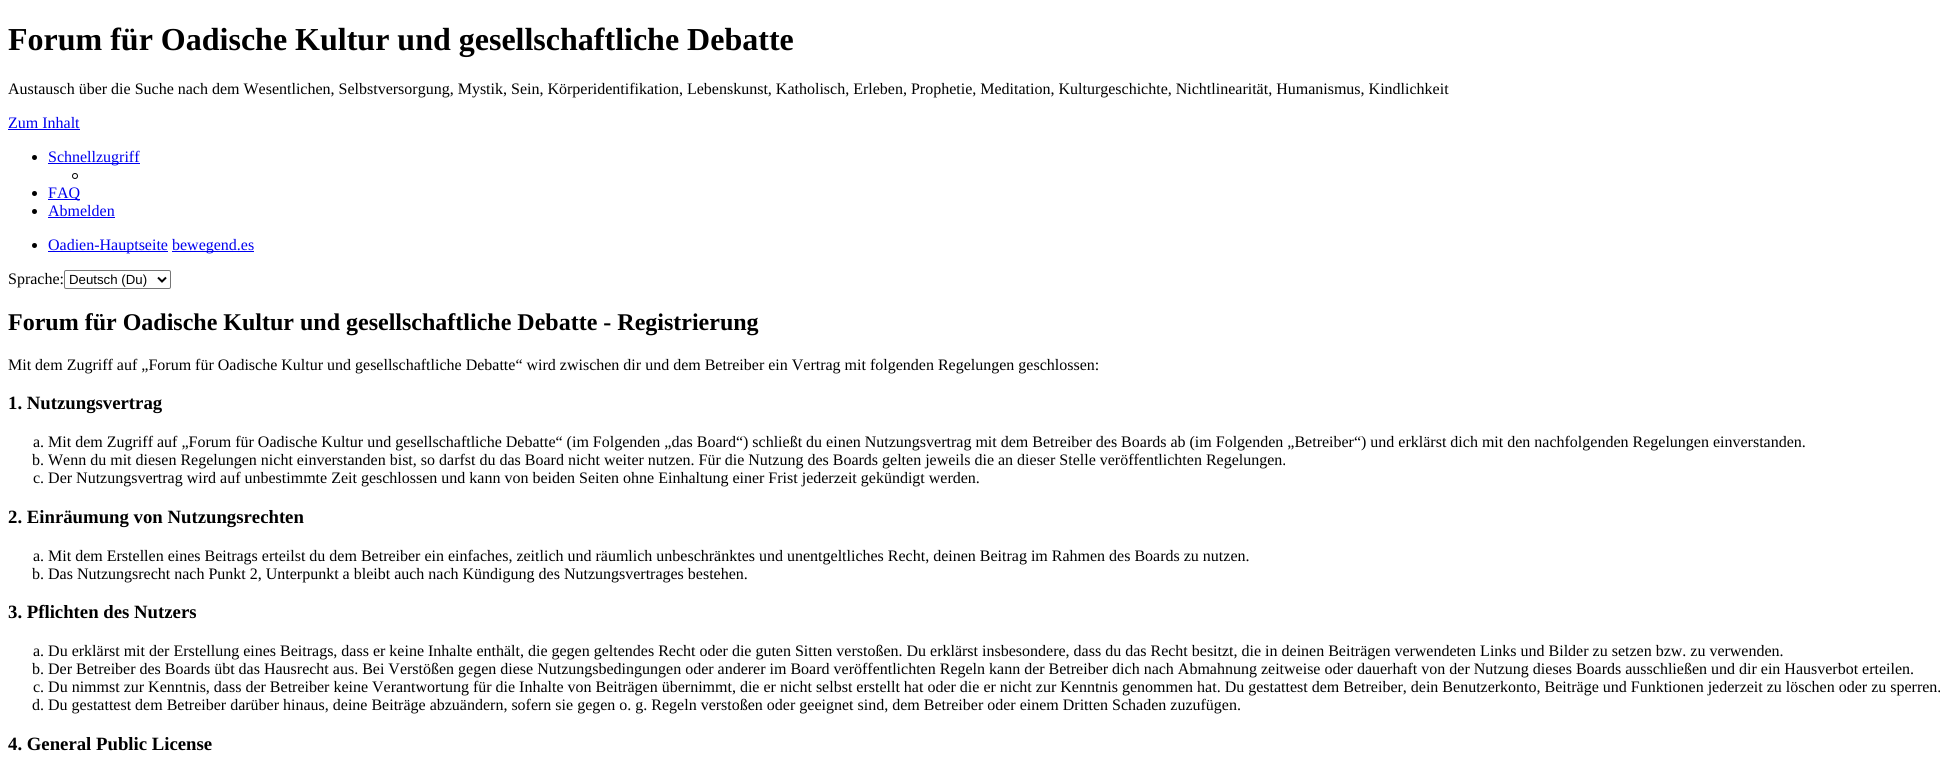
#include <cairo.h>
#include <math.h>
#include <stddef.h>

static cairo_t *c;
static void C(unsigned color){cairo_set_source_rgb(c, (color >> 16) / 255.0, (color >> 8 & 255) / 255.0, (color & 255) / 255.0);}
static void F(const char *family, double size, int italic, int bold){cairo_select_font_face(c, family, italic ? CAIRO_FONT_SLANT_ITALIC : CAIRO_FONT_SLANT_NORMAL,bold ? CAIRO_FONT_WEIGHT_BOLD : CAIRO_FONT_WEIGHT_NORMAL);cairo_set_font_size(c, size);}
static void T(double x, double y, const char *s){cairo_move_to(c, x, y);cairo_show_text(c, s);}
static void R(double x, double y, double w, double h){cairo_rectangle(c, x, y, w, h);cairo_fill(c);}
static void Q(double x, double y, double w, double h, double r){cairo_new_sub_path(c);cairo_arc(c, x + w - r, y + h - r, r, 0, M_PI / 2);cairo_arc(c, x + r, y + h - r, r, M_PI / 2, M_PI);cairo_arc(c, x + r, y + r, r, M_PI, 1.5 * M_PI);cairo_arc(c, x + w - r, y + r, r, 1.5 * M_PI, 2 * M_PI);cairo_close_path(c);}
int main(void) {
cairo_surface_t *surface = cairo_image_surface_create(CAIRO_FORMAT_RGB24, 1952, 774);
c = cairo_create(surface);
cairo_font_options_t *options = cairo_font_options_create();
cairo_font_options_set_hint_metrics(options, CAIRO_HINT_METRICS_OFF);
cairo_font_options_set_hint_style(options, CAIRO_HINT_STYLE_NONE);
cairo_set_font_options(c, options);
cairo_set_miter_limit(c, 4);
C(0xffffff);
cairo_paint(c);
F("Liberation Serif",32,0,1);
C(0x000000);
T(8,50,"Forum für Oadische Kultur und gesellschaftliche Debatte");
F("Liberation Serif",16,0,0);
T(8,94,"Austausch über die Suche nach dem Wesentlichen, Selbstversorgung, Mystik, Sein, Körperidentifikation, Lebenskunst, Katholisch, Erleben, Prophetie, Meditation, Kulturgeschichte, Nichtlinearität, Humanismus, Kindlichkeit");
C(0x0000ee);
T(8,128,"Zum Inhalt");
R(8,129,72,1);
C(0x000000);
cairo_new_path(c);
cairo_arc(c,34.5,157.5,2.5,0,2 * M_PI);
cairo_fill(c);
C(0x0000ee);
R(48,163,92,1);
T(48,162,"Schnellzugriff");
cairo_new_path(c);
cairo_arc(c,75,176,2.5,0,2 * M_PI);
C(0x000000);
cairo_set_line_width(c,1);
cairo_stroke(c);
cairo_arc(c,34.5,193.5,2.5,0,2 * M_PI);
cairo_fill(c);
C(0x0000ee);
R(48,199,32,1);
T(48,198,"FAQ");
C(0x000000);
cairo_new_path(c);
cairo_arc(c,34.5,211.5,2.5,0,2 * M_PI);
cairo_fill(c);
C(0x0000ee);
T(48,216,"Abmelden");
R(48,217,67,1);
C(0x000000);
cairo_new_path(c);
cairo_arc(c,34.5,245.5,2.5,0,2 * M_PI);
cairo_fill(c);
C(0x0000ee);
R(48,251,120,1);
T(48,250,"Oadien-Hauptseite");
R(172,251,82,1);
T(172,250,"bewegend.es");
C(0x000000);
T(8,284,"Sprache:");
Q(64.5,270.5,106,18,1.5);
C(0x767676);
cairo_stroke(c);
cairo_new_path(c);
cairo_move_to(c,158,277.5);
cairo_line_to(c,162,281.5);
cairo_line_to(c,166,277.5);
C(0x000000);
cairo_set_line_width(c,2);
cairo_stroke(c);
F("Liberation Sans",13.25,0,0);
T(69,284,"Deutsch (Du)");
F("Liberation Serif",24,0,1);
T(8,330,"Forum für Oadische Kultur und gesellschaftliche Debatte - Registrierung");
F("Liberation Serif",16,0,0);
T(8,370,"Mit dem Zugriff auf „Forum für Oadische Kultur und gesellschaftliche Debatte“ wird zwischen dir und dem Betreiber ein Vertrag mit folgenden Regelungen geschlossen:");
F("Liberation Serif",18.75,0,1);
T(8,409,"1. Nutzungsvertrag");
F("Liberation Serif",16,0,0);
T(33,447,"a. Mit dem Zugriff auf „Forum für Oadische Kultur und gesellschaftliche Debatte“ (im Folgenden „das Board“) schließt du einen Nutzungsvertrag mit dem Betreiber des Boards ab (im Folgenden „Betreiber“) und erklärst dich mit den nachfolgenden Regelungen einverstanden.");
T(32,465,"b. Wenn du mit diesen Regelungen nicht einverstanden bist, so darfst du das Board nicht weiter nutzen. Für die Nutzung des Boards gelten jeweils die an dieser Stelle veröffentlichten Regelungen.");
T(33,483,"c. Der Nutzungsvertrag wird auf unbestimmte Zeit geschlossen und kann von beiden Seiten ohne Einhaltung einer Frist jederzeit gekündigt werden.");
F("Liberation Serif",18.75,0,1);
T(8,523,"2. Einräumung von Nutzungsrechten");
F("Liberation Serif",16,0,0);
T(33,561,"a. Mit dem Erstellen eines Beitrags erteilst du dem Betreiber ein einfaches, zeitlich und räumlich unbeschränktes und unentgeltliches Recht, deinen Beitrag im Rahmen des Boards zu nutzen.");
T(32,579,"b. Das Nutzungsrecht nach Punkt 2, Unterpunkt a bleibt auch nach Kündigung des Nutzungsvertrages bestehen.");
F("Liberation Serif",18.75,0,1);
T(8,618,"3. Pflichten des Nutzers");
F("Liberation Serif",16,0,0);
T(33,656,"a. Du erklärst mit der Erstellung eines Beitrags, dass er keine Inhalte enthält, die gegen geltendes Recht oder die guten Sitten verstoßen. Du erklärst insbesondere, dass du das Recht besitzt, die in deinen Beiträgen verwendeten Links und Bilder zu setzen bzw. zu verwenden.");
T(32,674,"b. Der Betreiber des Boards übt das Hausrecht aus. Bei Verstößen gegen diese Nutzungsbedingungen oder anderer im Board veröffentlichten Regeln kann der Betreiber dich nach Abmahnung zeitweise oder dauerhaft von der Nutzung dieses Boards ausschließen und dir ein Hausverbot erteilen.");
T(33,692,"c. Du nimmst zur Kenntnis, dass der Betreiber keine Verantwortung für die Inhalte von Beiträgen übernimmt, die er nicht selbst erstellt hat oder die er nicht zur Kenntnis genommen hat. Du gestattest dem Betreiber, dein Benutzerkonto, Beiträge und Funktionen jederzeit zu löschen oder zu sperren.");
T(32,710,"d. Du gestattest dem Betreiber darüber hinaus, deine Beiträge abzuändern, sofern sie gegen o. g. Regeln verstoßen oder geeignet sind, dem Betreiber oder einem Dritten Schaden zuzufügen.");
F("Liberation Serif",18.75,0,1);
T(8,750,"4. General Public License");
cairo_surface_write_to_png(surface, "o.png");
cairo_font_options_destroy(options);
cairo_destroy(c);
cairo_surface_destroy(surface);
return 0;
}
